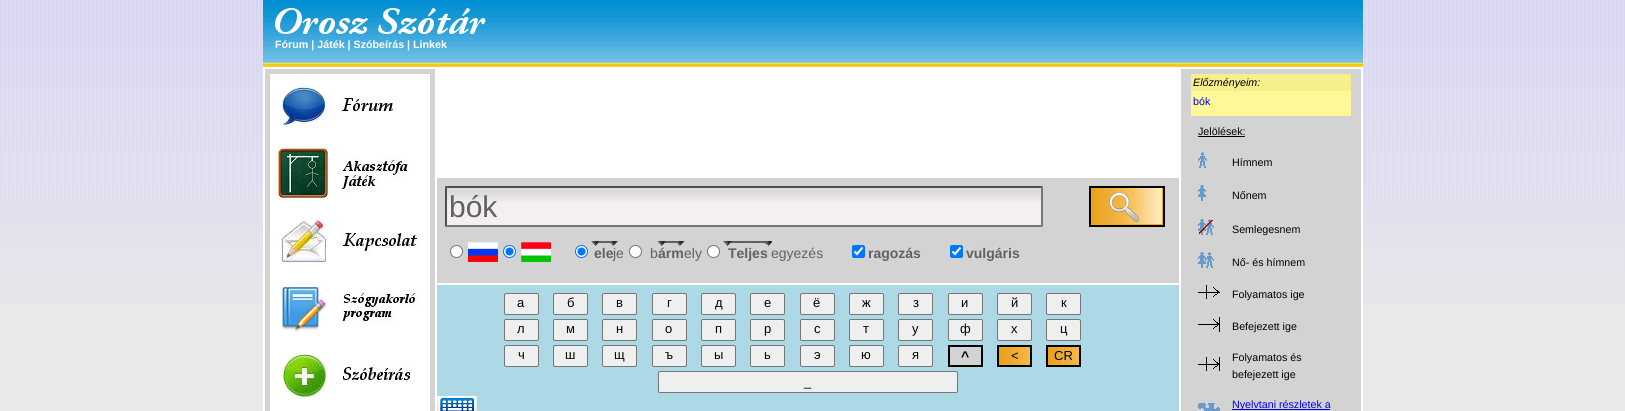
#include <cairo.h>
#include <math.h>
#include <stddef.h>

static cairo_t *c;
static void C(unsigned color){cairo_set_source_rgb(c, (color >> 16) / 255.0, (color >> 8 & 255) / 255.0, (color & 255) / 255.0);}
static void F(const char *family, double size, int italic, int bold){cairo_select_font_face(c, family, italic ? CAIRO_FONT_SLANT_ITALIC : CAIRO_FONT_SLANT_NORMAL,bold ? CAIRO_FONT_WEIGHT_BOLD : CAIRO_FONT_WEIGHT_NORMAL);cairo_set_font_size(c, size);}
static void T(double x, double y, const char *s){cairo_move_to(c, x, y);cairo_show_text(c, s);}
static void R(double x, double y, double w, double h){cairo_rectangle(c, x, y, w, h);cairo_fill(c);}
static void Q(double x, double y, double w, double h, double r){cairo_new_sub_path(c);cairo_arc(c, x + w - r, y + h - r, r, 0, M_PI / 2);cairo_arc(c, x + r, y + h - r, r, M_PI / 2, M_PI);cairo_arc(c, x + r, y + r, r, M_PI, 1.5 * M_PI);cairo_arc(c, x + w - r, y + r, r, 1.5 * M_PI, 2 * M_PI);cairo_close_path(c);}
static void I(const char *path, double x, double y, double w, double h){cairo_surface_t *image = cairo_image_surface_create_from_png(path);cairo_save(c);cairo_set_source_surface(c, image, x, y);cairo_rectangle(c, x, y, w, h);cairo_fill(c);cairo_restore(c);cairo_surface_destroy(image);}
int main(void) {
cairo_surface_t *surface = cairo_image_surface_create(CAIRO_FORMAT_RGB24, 1625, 411);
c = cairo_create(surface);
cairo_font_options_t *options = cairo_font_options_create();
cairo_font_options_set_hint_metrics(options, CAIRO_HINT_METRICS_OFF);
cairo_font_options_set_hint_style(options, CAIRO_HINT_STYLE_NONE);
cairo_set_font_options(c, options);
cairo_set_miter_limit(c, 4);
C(0xeaeaea);
cairo_paint(c);
I("1.png",0,0,1625,304);
C(0xffffff);
R(263,67,1100,344);
I("2.png",263,0,1100,67);
I("3.png",275,8,211,26);
F("Liberation Sans",10.7,0,1);
T(275,48,"Fórum | Játék | Szóbeírás | Linkek");
C(0xd3d3d3);
R(265,69,170,342);
C(0xffffff);
R(270,74,160,337);
I("4.png",280,85,48,41);
I("5.png",340,97,56,16);
I("6.png",278,148,50,50);
I("7.png",340,156,72,40);
I("8.png",281,219,47,43);
I("9.png",340,232,80,24);
I("10.png",281,287,46,45);
I("11.png",340,291,80,32);
I("12.png",282,351,46,48);
I("13.png",340,366,72,16);
C(0xd3d3d3);
R(437,178,742,105);
I("14.png",445,188,598,39);
C(0x4f4f4f);
cairo_new_path(c);
cairo_move_to(c,445,186);
cairo_line_to(c,1043,186);
cairo_line_to(c,1041,188);
cairo_line_to(c,447,188);
cairo_close_path(c);
cairo_fill(c);
C(0x767676);
cairo_new_path(c);
cairo_move_to(c,1043,186);
cairo_line_to(c,1043,227);
cairo_line_to(c,1041,225);
cairo_line_to(c,1041,188);
cairo_close_path(c);
cairo_fill(c);
cairo_new_path(c);
cairo_move_to(c,1043,227);
cairo_line_to(c,445,227);
cairo_line_to(c,447,225);
cairo_line_to(c,1041,225);
cairo_close_path(c);
cairo_fill(c);
C(0x4f4f4f);
cairo_new_path(c);
cairo_move_to(c,445,227);
cairo_line_to(c,445,186);
cairo_line_to(c,447,188);
cairo_line_to(c,447,225);
cairo_close_path(c);
cairo_fill(c);
F("Liberation Sans",30,0,0);
C(0x626161);
T(449,217,"bók");
C(0xffa500);
R(1091,188,72,37);
I("15.png",1091,188,71,36);
cairo_rectangle(c,1090,187,74,39);
C(0x000000);
cairo_stroke(c);
C(0xffffff);
cairo_arc(c,456.5,251.5,6,0,2 * M_PI);
cairo_fill_preserve(c);
C(0x767676);
cairo_set_line_width(c,1);
cairo_stroke(c);
I("16.png",468,242,30,20);
C(0xffffff);
cairo_arc(c,509.5,251.5,6,0,2 * M_PI);
cairo_fill_preserve(c);
C(0x0075ff);
cairo_stroke(c);
cairo_arc(c,509.5,251.5,4,0,2 * M_PI);
cairo_fill(c);
I("17.png",521,242,30,20);
I("18.png",591,241,27,5);
I("19.png",657,241,28,5);
I("20.png",723,241,49,5);
C(0xffffff);
cairo_arc(c,581.5,251.5,6,0,2 * M_PI);
cairo_fill_preserve(c);
C(0x0075ff);
cairo_stroke(c);
cairo_arc(c,581.5,251.5,4,0,2 * M_PI);
cairo_fill(c);
F("Liberation Sans",14,0,1);
C(0x626161);
T(594,258,"ele");
F("Liberation Sans",14,0,0);
T(613,258,"je");
C(0xffffff);
cairo_new_path(c);
cairo_arc(c,635.5,251.5,6,0,2 * M_PI);
cairo_fill_preserve(c);
C(0x767676);
cairo_stroke(c);
C(0x626161);
T(650,258,"b");
F("Liberation Sans",14,0,1);
T(658,258,"árm");
F("Liberation Sans",14,0,0);
T(684,258,"ely");
C(0xffffff);
cairo_new_path(c);
cairo_arc(c,713.5,251.5,6,0,2 * M_PI);
cairo_fill_preserve(c);
C(0x767676);
cairo_stroke(c);
F("Liberation Sans",14,0,1);
C(0x626161);
T(728,258,"Teljes");
F("Liberation Sans",14,0,0);
T(771,258,"egyezés");
C(0x0075ff);
Q(852,245,13,13,2);
cairo_fill(c);
cairo_new_path(c);
cairo_move_to(c,854.5,251.5);
cairo_line_to(c,857,254);
cairo_line_to(c,862.5,247.5);
C(0xffffff);
cairo_set_line_width(c,2.1);
cairo_stroke(c);
F("Liberation Sans",14,0,1);
C(0x626161);
T(868,258,"ragozás");
C(0x0075ff);
Q(950,245,13,13,2);
cairo_fill(c);
cairo_new_path(c);
cairo_move_to(c,952.5,251.5);
cairo_line_to(c,955,254);
cairo_line_to(c,960.5,247.5);
C(0xffffff);
cairo_stroke(c);
C(0x626161);
T(966,258,"vulgáris");
C(0xadd8e6);
R(437,285,742,111);
C(0xefefef);
Q(504.5,293.5,34,21,1.5);
cairo_fill_preserve(c);
C(0x767676);
cairo_set_line_width(c,1);
cairo_stroke(c);
F("Liberation Sans",13,0,0);
C(0x000000);
T(517,307,"а");
C(0xefefef);
Q(553.5,293.5,34,21,1.5);
cairo_fill_preserve(c);
C(0x767676);
cairo_stroke(c);
C(0x000000);
T(567,307,"б");
C(0xefefef);
Q(602.5,293.5,34,21,1.5);
cairo_fill_preserve(c);
C(0x767676);
cairo_stroke(c);
C(0x000000);
T(616,307,"в");
C(0xefefef);
Q(652.5,293.5,34,21,1.5);
cairo_fill_preserve(c);
C(0x767676);
cairo_stroke(c);
C(0x000000);
T(667,307,"г");
C(0xefefef);
Q(701.5,293.5,34,21,1.5);
cairo_fill_preserve(c);
C(0x767676);
cairo_stroke(c);
C(0x000000);
T(715,307,"д");
C(0xefefef);
Q(750.5,293.5,34,21,1.5);
cairo_fill_preserve(c);
C(0x767676);
cairo_stroke(c);
C(0x000000);
T(764,307,"е");
C(0xefefef);
Q(800.5,293.5,34,21,1.5);
cairo_fill_preserve(c);
C(0x767676);
cairo_stroke(c);
C(0x000000);
T(813,307,"ё");
C(0xefefef);
Q(849.5,293.5,34,21,1.5);
cairo_fill_preserve(c);
C(0x767676);
cairo_stroke(c);
C(0x000000);
T(862,307,"ж");
C(0xefefef);
Q(898.5,293.5,34,21,1.5);
cairo_fill_preserve(c);
C(0x767676);
cairo_stroke(c);
C(0x000000);
T(913,307,"з");
C(0xefefef);
Q(948.5,293.5,34,21,1.5);
cairo_fill_preserve(c);
C(0x767676);
cairo_stroke(c);
C(0x000000);
T(961,307,"и");
C(0xefefef);
Q(997.5,293.5,34,21,1.5);
cairo_fill_preserve(c);
C(0x767676);
cairo_stroke(c);
C(0x000000);
T(1011,307,"й");
C(0xefefef);
Q(1046.5,293.5,34,21,1.5);
cairo_fill_preserve(c);
C(0x767676);
cairo_stroke(c);
C(0x000000);
T(1061,307,"к");
C(0xefefef);
Q(504.5,319.5,34,21,1.5);
cairo_fill_preserve(c);
C(0x767676);
cairo_stroke(c);
C(0x000000);
T(517,333,"л");
C(0xefefef);
Q(553.5,319.5,34,21,1.5);
cairo_fill_preserve(c);
C(0x767676);
cairo_stroke(c);
C(0x000000);
T(566,333,"м");
C(0xefefef);
Q(602.5,319.5,34,21,1.5);
cairo_fill_preserve(c);
C(0x767676);
cairo_stroke(c);
C(0x000000);
T(616,333,"н");
C(0xefefef);
Q(652.5,319.5,34,21,1.5);
cairo_fill_preserve(c);
C(0x767676);
cairo_stroke(c);
C(0x000000);
T(665,333,"о");
C(0xefefef);
Q(701.5,319.5,34,21,1.5);
cairo_fill_preserve(c);
C(0x767676);
cairo_stroke(c);
C(0x000000);
T(715,333,"п");
C(0xefefef);
Q(750.5,319.5,34,21,1.5);
cairo_fill_preserve(c);
C(0x767676);
cairo_stroke(c);
C(0x000000);
T(764,333,"р");
C(0xefefef);
Q(800.5,319.5,34,21,1.5);
cairo_fill_preserve(c);
C(0x767676);
cairo_stroke(c);
C(0x000000);
T(814,333,"с");
C(0xefefef);
Q(849.5,319.5,34,21,1.5);
cairo_fill_preserve(c);
C(0x767676);
cairo_stroke(c);
C(0x000000);
T(863,333,"т");
C(0xefefef);
Q(898.5,319.5,34,21,1.5);
cairo_fill_preserve(c);
C(0x767676);
cairo_stroke(c);
C(0x000000);
T(912,333,"у");
C(0xefefef);
Q(948.5,319.5,34,21,1.5);
cairo_fill_preserve(c);
C(0x767676);
cairo_stroke(c);
C(0x000000);
T(960,333,"ф");
C(0xefefef);
Q(997.5,319.5,34,21,1.5);
cairo_fill_preserve(c);
C(0x767676);
cairo_stroke(c);
C(0x000000);
T(1011,333,"х");
C(0xefefef);
Q(1046.5,319.5,34,21,1.5);
cairo_fill_preserve(c);
C(0x767676);
cairo_stroke(c);
C(0x000000);
T(1060,333,"ц");
C(0xefefef);
Q(504.5,345.5,34,21,1.5);
cairo_fill_preserve(c);
C(0x767676);
cairo_stroke(c);
C(0x000000);
T(518,359,"ч");
C(0xefefef);
Q(553.5,345.5,34,21,1.5);
cairo_fill_preserve(c);
C(0x767676);
cairo_stroke(c);
C(0x000000);
T(565,359,"ш");
C(0xefefef);
Q(602.5,345.5,34,21,1.5);
cairo_fill_preserve(c);
C(0x767676);
cairo_stroke(c);
C(0x000000);
T(614,359,"щ");
C(0xefefef);
Q(652.5,345.5,34,21,1.5);
cairo_fill_preserve(c);
C(0x767676);
cairo_stroke(c);
C(0x000000);
T(665,359,"ъ");
C(0xefefef);
Q(701.5,345.5,34,21,1.5);
cairo_fill_preserve(c);
C(0x767676);
cairo_stroke(c);
C(0x000000);
T(714,359,"ы");
C(0xefefef);
Q(750.5,345.5,34,21,1.5);
cairo_fill_preserve(c);
C(0x767676);
cairo_stroke(c);
C(0x000000);
T(764,359,"ь");
C(0xefefef);
Q(800.5,345.5,34,21,1.5);
cairo_fill_preserve(c);
C(0x767676);
cairo_stroke(c);
C(0x000000);
T(814,359,"э");
C(0xefefef);
Q(849.5,345.5,34,21,1.5);
cairo_fill_preserve(c);
C(0x767676);
cairo_stroke(c);
C(0x000000);
T(861,359,"ю");
C(0xefefef);
Q(898.5,345.5,34,21,1.5);
cairo_fill_preserve(c);
C(0x767676);
cairo_stroke(c);
C(0x000000);
T(912,359,"я");
C(0xd3d3d3);
cairo_rectangle(c,949,346,33,20);
cairo_fill_preserve(c);
C(0x000000);
cairo_set_line_width(c,2);
cairo_stroke(c);
F("Liberation Sans",14,0,1);
T(961,361,"^");
I("21.png",999,347,31,18);
cairo_rectangle(c,998,346,33,20);
cairo_stroke(c);
F("Liberation Sans",13,0,0);
T(1011,360,"<");
I("21.png",1048,347,31,18);
cairo_rectangle(c,1047,346,33,20);
cairo_stroke(c);
T(1054,360,"CR");
C(0xefefef);
Q(658.5,371.5,299,21,1.5);
cairo_fill_preserve(c);
C(0x767676);
cairo_set_line_width(c,1);
cairo_stroke(c);
C(0x000000);
T(804,386,"_");
C(0xadd8e6);
R(477,396,702,15);
I("22.png",437,396,40,15);
C(0xd3d3d3);
R(1181,69,180,342);
C(0xf6ef8b);
R(1191,74,160,17);
F("Liberation Sans",10.7,1,0);
C(0x000000);
T(1193,86,"Előzményeim:");
C(0xfff899);
R(1191,91,160,25);
F("Liberation Sans",10.7,0,0);
C(0x0000ee);
T(1193,105,"bók");
C(0x000000);
T(1198,135,"Jelölések:");
R(1198,136,47,1);
I("23.png",1198,152,9,16);
T(1232,166,"Hímnem");
I("24.png",1198,185,8,16);
T(1232,199,"Nőnem");
I("25.png",1198,219,16,16);
T(1232,233,"Semlegesnem");
I("26.png",1198,252,16,16);
T(1232,266,"Nő- és hímnem");
I("27.png",1198,285,22,14);
T(1232,298,"Folyamatos ige");
I("28.png",1198,317,22,15);
T(1232,330,"Befejezett ige");
I("29.png",1198,357,22,14);
T(1232,361,"Folyamatos és");
T(1232,378,"befejezett ige");
I("30.png",1198,403,22,8);
C(0x0000ee);
R(1232,409,98,1);
T(1232,408,"Nyelvtani részletek a");
cairo_surface_write_to_png(surface, "o.png");
cairo_font_options_destroy(options);
cairo_destroy(c);
cairo_surface_destroy(surface);
return 0;
}
